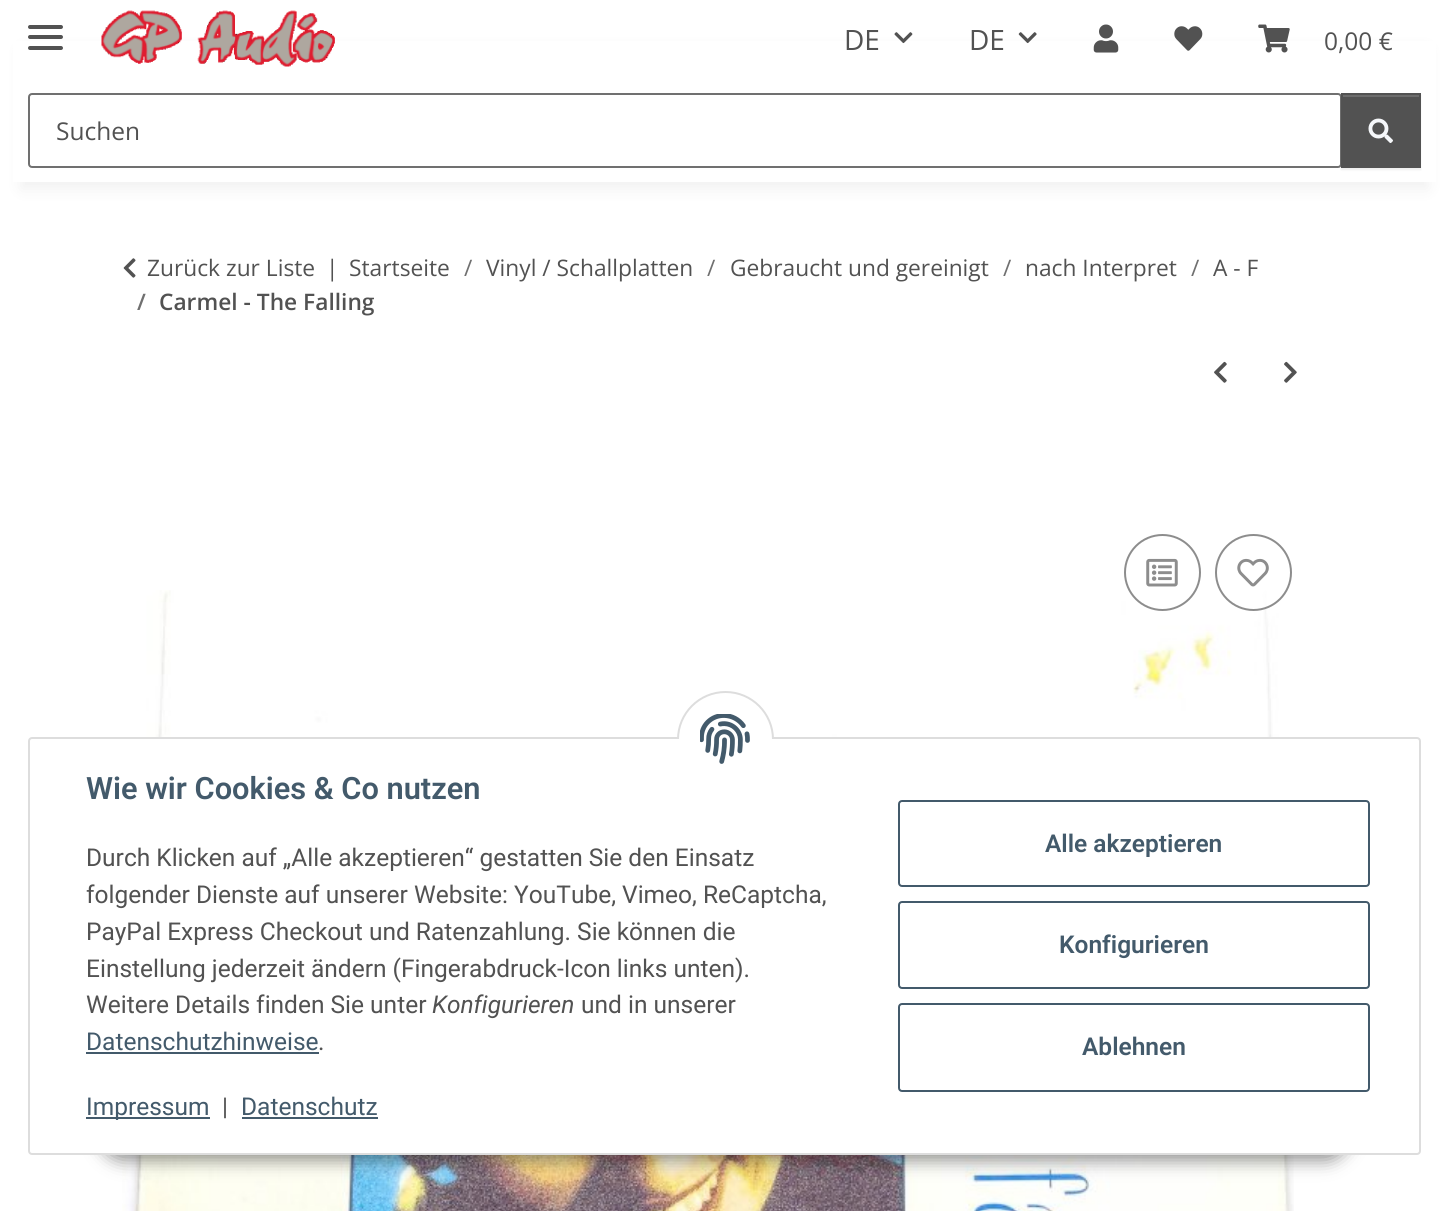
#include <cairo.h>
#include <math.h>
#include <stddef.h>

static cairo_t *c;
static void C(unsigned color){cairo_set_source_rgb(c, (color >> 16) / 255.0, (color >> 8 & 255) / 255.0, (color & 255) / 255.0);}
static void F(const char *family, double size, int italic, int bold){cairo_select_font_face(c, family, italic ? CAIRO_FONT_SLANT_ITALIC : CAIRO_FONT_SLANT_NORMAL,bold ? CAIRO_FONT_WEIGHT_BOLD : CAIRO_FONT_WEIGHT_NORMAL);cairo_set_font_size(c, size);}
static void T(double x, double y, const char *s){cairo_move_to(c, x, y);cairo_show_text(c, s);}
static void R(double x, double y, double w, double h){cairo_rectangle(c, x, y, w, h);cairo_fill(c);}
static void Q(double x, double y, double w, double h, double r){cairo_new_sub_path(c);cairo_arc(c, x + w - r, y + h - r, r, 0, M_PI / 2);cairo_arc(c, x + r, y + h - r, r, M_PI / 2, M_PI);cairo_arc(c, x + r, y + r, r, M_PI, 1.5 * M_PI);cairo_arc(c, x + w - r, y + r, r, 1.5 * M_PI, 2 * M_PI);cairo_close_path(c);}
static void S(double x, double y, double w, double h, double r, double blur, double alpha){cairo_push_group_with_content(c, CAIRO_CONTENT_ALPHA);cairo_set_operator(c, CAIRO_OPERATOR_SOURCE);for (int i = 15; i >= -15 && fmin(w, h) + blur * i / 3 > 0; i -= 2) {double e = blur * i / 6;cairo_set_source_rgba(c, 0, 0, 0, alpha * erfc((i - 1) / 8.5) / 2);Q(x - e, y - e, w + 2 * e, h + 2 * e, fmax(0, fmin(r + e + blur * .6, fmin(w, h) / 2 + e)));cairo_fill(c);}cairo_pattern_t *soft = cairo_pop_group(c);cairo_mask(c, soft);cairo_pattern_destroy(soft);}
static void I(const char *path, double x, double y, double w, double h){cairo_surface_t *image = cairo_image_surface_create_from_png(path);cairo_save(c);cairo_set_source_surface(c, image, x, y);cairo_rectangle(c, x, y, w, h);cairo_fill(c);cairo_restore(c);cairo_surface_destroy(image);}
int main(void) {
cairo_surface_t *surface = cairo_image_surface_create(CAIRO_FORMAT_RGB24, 1449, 1211);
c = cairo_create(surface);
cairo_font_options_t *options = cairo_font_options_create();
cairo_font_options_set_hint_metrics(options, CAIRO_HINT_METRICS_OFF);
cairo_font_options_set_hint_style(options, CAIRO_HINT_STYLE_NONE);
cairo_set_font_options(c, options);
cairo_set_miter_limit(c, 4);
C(0xffffff);
cairo_paint(c);
C(0x000000);
S(21,49,1407,140,0,8,.06);
C(0xffffff);
R(13,41,1423,141);
C(0x525252);
Q(28,35,35,4,2);
cairo_fill(c);
Q(28,25,35,4,2);
cairo_fill(c);
Q(28,46,35,4,2);
cairo_fill(c);
I("1.png",101,10,234,57);
F("Open Sans",28,0,0);
T(844,50,"DE");
I("2.png",894,32,19,12);
T(969,50,"DE");
I("3.png",1018,32,19,12);
I("4.png",1093,24,26,29);
I("5.png",1174,26,29,25);
I("6.png",1258,24,32,29);
F("Open Sans",24.5,0,0);
T(1324,50,"0,00 €");
Q(29,94,1312,73,3);
C(0x707070);
cairo_stroke(c);
C(0x525252);
T(56,140,"Suchen");
C(0x000000);
S(1341,95,80,75,0,1,.07);
C(0x525252);
R(1343,97,76,69);
C(0x6c6c6c);
R(1342,95,77,2);
cairo_rectangle(c,1342,94,78,73);
C(0x525252);
cairo_stroke(c);
I("7.png",1368,118,25,25);
I("8.png",123,258,13,20);
F("Open Sans",22.75,0,0);
T(147,276,"Zurück zur Liste");
T(326,276,"|");
T(349,276,"Startseite");
C(0x707070);
T(464,276,"/");
C(0x525252);
T(486,276,"Vinyl / Schallplatten");
C(0x707070);
T(707,276,"/");
C(0x525252);
T(730,276,"Gebraucht und gereinigt");
C(0x707070);
T(1003,276,"/");
C(0x525252);
T(1025,276,"nach Interpret");
C(0x707070);
T(1191,276,"/");
C(0x525252);
T(1213,276,"A - F");
F("Open Sans SemiBold",22.75,0,0);
C(0x707070);
T(137,310,"/");
C(0x525252);
T(159,310,"Carmel - The Falling");
I("9.png",1214,361,13,22);
I("10.png",1284,361,13,22);
I("13.png",122,590,1172,621);
cairo_arc(c,1162.5,572.5,37.5,0,2 * M_PI);
C(0x8d8d8d);
cairo_stroke(c);
I("11.png",1146,558,32,29);
cairo_set_source_rgba(c,1,1,1,0.8);
cairo_arc(c,1253.5,572.5,37.5,0,2 * M_PI);
cairo_fill_preserve(c);
C(0x8d8d8d);
cairo_stroke(c);
I("12.png",1237,558,32,29);
C(0x000000);
S(100,1104,1249,56,28,9,.45);
C(0xffffff);
Q(29,738,1391,416,3);
cairo_fill_preserve(c);
C(0xdddddd);
cairo_stroke(c);
C(0xffffff);
cairo_arc(c,725.5,739.5,47.5,0,2 * M_PI);
cairo_fill_preserve(c);
C(0xdddddd);
cairo_stroke(c);
C(0xffffff);
R(677,739,97,49);
I("14.png",700,714,50,50);
F("Roboto SemiBold",30.75,0,0);
C(0x435a6b);
T(86,799,"Wie wir Cookies & Co nutzen");
F("Roboto",24.5,0,0);
C(0x525252);
T(86,866,"Durch Klicken auf „Alle akzeptieren“ gestatten Sie den Einsatz");
T(86,903,"folgender Dienste auf unserer Website: YouTube, Vimeo, ReCaptcha,");
T(86,940,"PayPal Express Checkout und Ratenzahlung. Sie können die");
T(86,977,"Einstellung jederzeit ändern (Fingerabdruck-Icon links unten).");
T(86,1013,"Weitere Details finden Sie unter");
F("Roboto",24.5,1,0);
T(432,1013,"Konfigurieren");
F("Roboto",24.5,0,0);
T(581,1013,"und in unserer");
C(0x435a6b);
T(86,1050,"Datenschutzhinweise");
R(86,1052,233,2);
C(0x525252);
T(318,1050,".");
C(0x435a6b);
R(86,1117,124,2);
T(86,1115,"Impressum");
C(0x525252);
T(222,1115,"|");
C(0x435a6b);
T(241,1115,"Datenschutz");
R(242,1117,136,2);
Q(899,801,470,85,3);
cairo_stroke(c);
F("Roboto SemiBold",24.5,0,0);
T(1045,852,"Alle akzeptieren");
Q(899,902,470,86,3);
cairo_stroke(c);
T(1059,953,"Konfigurieren");
Q(899,1004,470,87,3);
cairo_stroke(c);
T(1082,1055,"Ablehnen");
cairo_surface_write_to_png(surface, "o.png");
cairo_font_options_destroy(options);
cairo_destroy(c);
cairo_surface_destroy(surface);
return 0;
}
